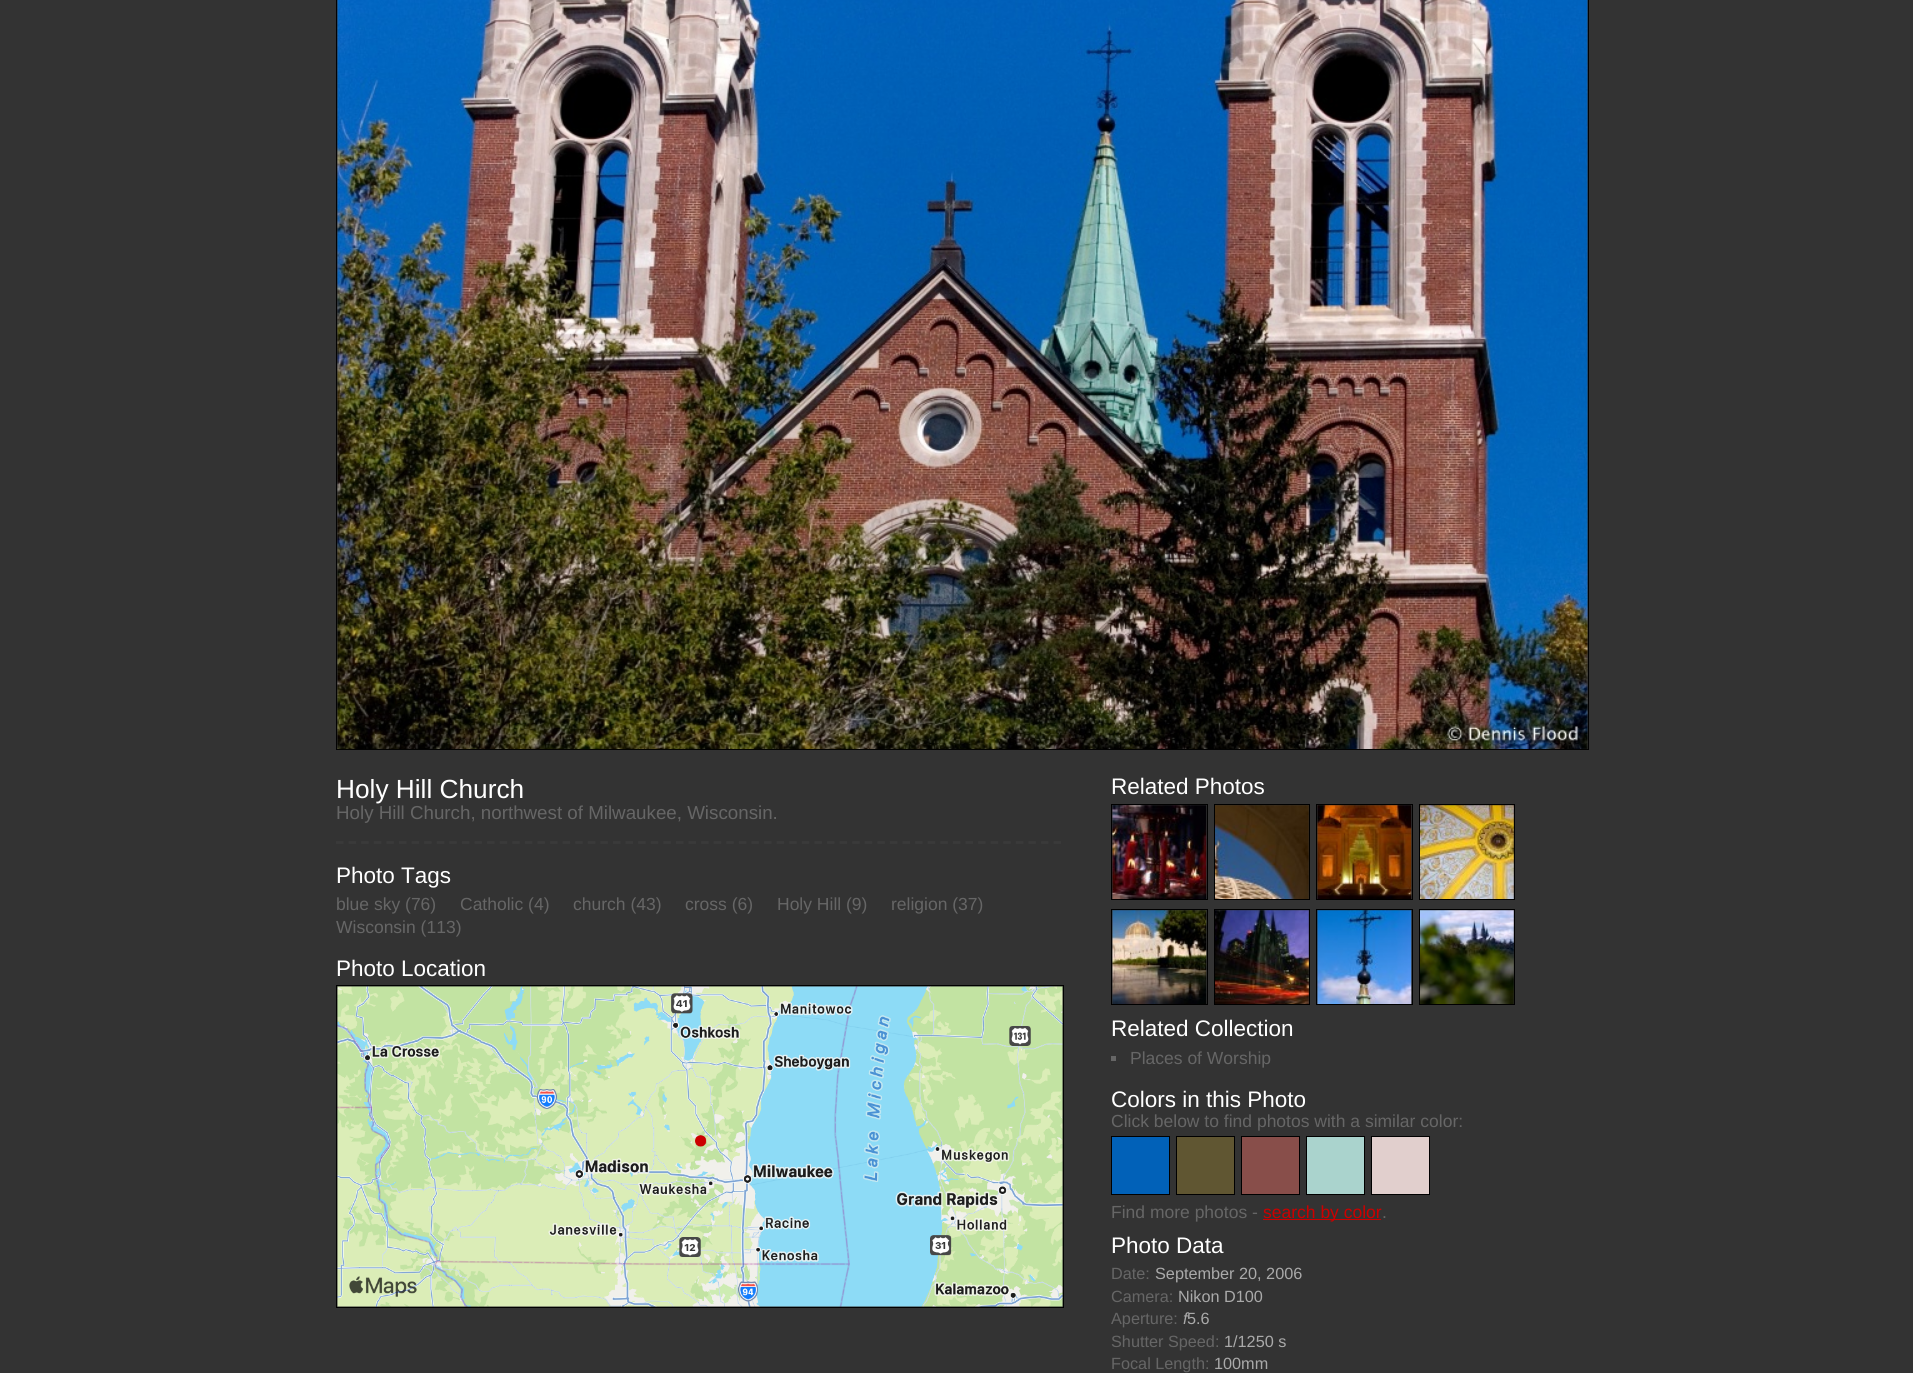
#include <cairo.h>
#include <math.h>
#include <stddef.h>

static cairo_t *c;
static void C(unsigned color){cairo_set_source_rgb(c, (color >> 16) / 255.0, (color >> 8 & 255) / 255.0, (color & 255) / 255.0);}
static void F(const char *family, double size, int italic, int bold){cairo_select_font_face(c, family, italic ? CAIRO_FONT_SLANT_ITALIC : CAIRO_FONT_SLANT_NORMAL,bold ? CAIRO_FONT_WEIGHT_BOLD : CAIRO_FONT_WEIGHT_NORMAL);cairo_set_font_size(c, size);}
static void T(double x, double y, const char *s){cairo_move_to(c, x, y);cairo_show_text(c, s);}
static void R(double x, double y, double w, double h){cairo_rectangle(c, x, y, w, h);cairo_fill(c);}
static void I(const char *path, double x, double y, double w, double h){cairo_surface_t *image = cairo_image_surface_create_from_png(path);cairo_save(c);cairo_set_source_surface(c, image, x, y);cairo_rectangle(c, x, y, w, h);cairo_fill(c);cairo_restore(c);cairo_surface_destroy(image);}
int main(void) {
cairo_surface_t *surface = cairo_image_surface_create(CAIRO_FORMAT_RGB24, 1913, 1373);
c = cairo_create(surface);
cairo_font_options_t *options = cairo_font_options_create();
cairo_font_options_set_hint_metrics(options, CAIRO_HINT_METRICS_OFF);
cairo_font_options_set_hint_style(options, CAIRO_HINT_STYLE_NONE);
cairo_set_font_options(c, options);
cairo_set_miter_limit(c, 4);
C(0x333333);
cairo_paint(c);
cairo_rectangle(c,336.5,-.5,1252,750);
C(0x030303);
cairo_set_line_width(c,1);
cairo_stroke(c);
I("1.png",337,0,1251,749);
F("Liberation Sans",26.25,0,0);
C(0xffffff);
T(336,798,"Holy Hill Church");
F("Liberation Sans",18.75,0,0);
C(0x666666);
T(336,819,"Holy Hill Church, northwest of Milwaukee, Wisconsin.");
cairo_new_path(c);
cairo_move_to(c,336,842.5);
cairo_line_to(c,1061,842.5);
C(0x3a3a3a);
cairo_set_line_width(c,2.5);
cairo_set_dash(c,(double[]){7.5,5.09},2,0);
cairo_stroke(c);
F("Liberation Sans",22.5,0,0);
C(0xffffff);
T(336,883,"Photo Tags");
F("Liberation Sans",17.5,0,0);
C(0x666666);
T(336,910,"blue sky (76)");
T(460,910,"Catholic (4)");
T(573,910,"church (43)");
T(685,910,"cross (6)");
T(777,910,"Holy Hill (9)");
T(891,910,"religion (37)");
T(336,933,"Wisconsin (113)");
F("Liberation Sans",22.5,0,0);
C(0xffffff);
T(336,976,"Photo Location");
cairo_rectangle(c,336.5,985.5,727,322);
C(0x000000);
cairo_set_line_width(c,1);
cairo_set_dash(c,NULL,0,0);
cairo_stroke(c);
I("2.png",337,986,726,321);
C(0xffffff);
T(1111,794,"Related Photos");
cairo_rectangle(c,1111.5,804.5,96,95);
C(0x000000);
cairo_stroke(c);
I("3.png",1112,805,95,94);
cairo_rectangle(c,1214.5,804.5,95,95);
cairo_stroke(c);
I("4.png",1215,805,94,94);
cairo_rectangle(c,1316.5,804.5,96,95);
cairo_stroke(c);
I("5.png",1317,805,95,94);
cairo_rectangle(c,1419.5,804.5,95,95);
cairo_stroke(c);
I("6.png",1420,805,94,94);
cairo_rectangle(c,1111.5,909.5,96,95);
cairo_stroke(c);
I("7.png",1112,910,95,94);
cairo_rectangle(c,1214.5,909.5,95,95);
cairo_stroke(c);
I("8.png",1215,910,94,94);
cairo_rectangle(c,1316.5,909.5,96,95);
cairo_stroke(c);
I("9.png",1317,910,95,94);
cairo_rectangle(c,1419.5,909.5,95,95);
cairo_stroke(c);
I("10.png",1420,910,94,94);
C(0xffffff);
T(1111,1036,"Related Collection");
C(0x666666);
R(1111,1056,5,5);
F("Liberation Sans",17.5,0,0);
T(1130,1064,"Places of Worship");
F("Liberation Sans",22.5,0,0);
C(0xffffff);
T(1111,1107,"Colors in this Photo");
F("Liberation Sans",17.5,0,0);
C(0x666666);
T(1111,1127,"Click below to find photos with a similar color:");
C(0x0161b8);
cairo_rectangle(c,1111.5,1136.5,58,58);
cairo_fill_preserve(c);
C(0x000000);
cairo_stroke(c);
C(0x605632);
cairo_rectangle(c,1176.5,1136.5,58,58);
cairo_fill_preserve(c);
C(0x000000);
cairo_stroke(c);
C(0x884e4a);
cairo_rectangle(c,1241.5,1136.5,58,58);
cairo_fill_preserve(c);
C(0x000000);
cairo_stroke(c);
C(0xaad3cd);
cairo_rectangle(c,1306.5,1136.5,58,58);
cairo_fill_preserve(c);
C(0x000000);
cairo_stroke(c);
C(0xe1cfcd);
cairo_rectangle(c,1371.5,1136.5,58,58);
cairo_fill_preserve(c);
C(0x000000);
cairo_stroke(c);
C(0x666666);
T(1111,1218,"Find more photos -");
C(0xcc0000);
R(1263,1219,118,1);
T(1263,1218,"search by color");
C(0x666666);
T(1382,1218,".");
F("Liberation Sans",22.5,0,0);
C(0xffffff);
T(1111,1253,"Photo Data");
F("Liberation Sans",16.25,0,0);
C(0x666666);
T(1111,1279,"Date:");
C(0xaaaaaa);
T(1155,1279,"September 20, 2006");
C(0x666666);
T(1111,1302,"Camera:");
C(0xaaaaaa);
T(1178,1302,"Nikon D100");
C(0x666666);
T(1111,1324,"Aperture:");
F("Liberation Sans",16.25,1,0);
C(0xaaaaaa);
T(1183,1324,"f");
F("Liberation Sans",16.25,0,0);
T(1187,1324,"5.6");
C(0x666666);
T(1111,1347,"Shutter Speed:");
C(0xaaaaaa);
T(1224,1347,"1/1250 s");
C(0x666666);
T(1111,1369,"Focal Length:");
C(0xaaaaaa);
T(1214,1369,"100mm");
cairo_surface_write_to_png(surface, "o.png");
cairo_font_options_destroy(options);
cairo_destroy(c);
cairo_surface_destroy(surface);
return 0;
}
